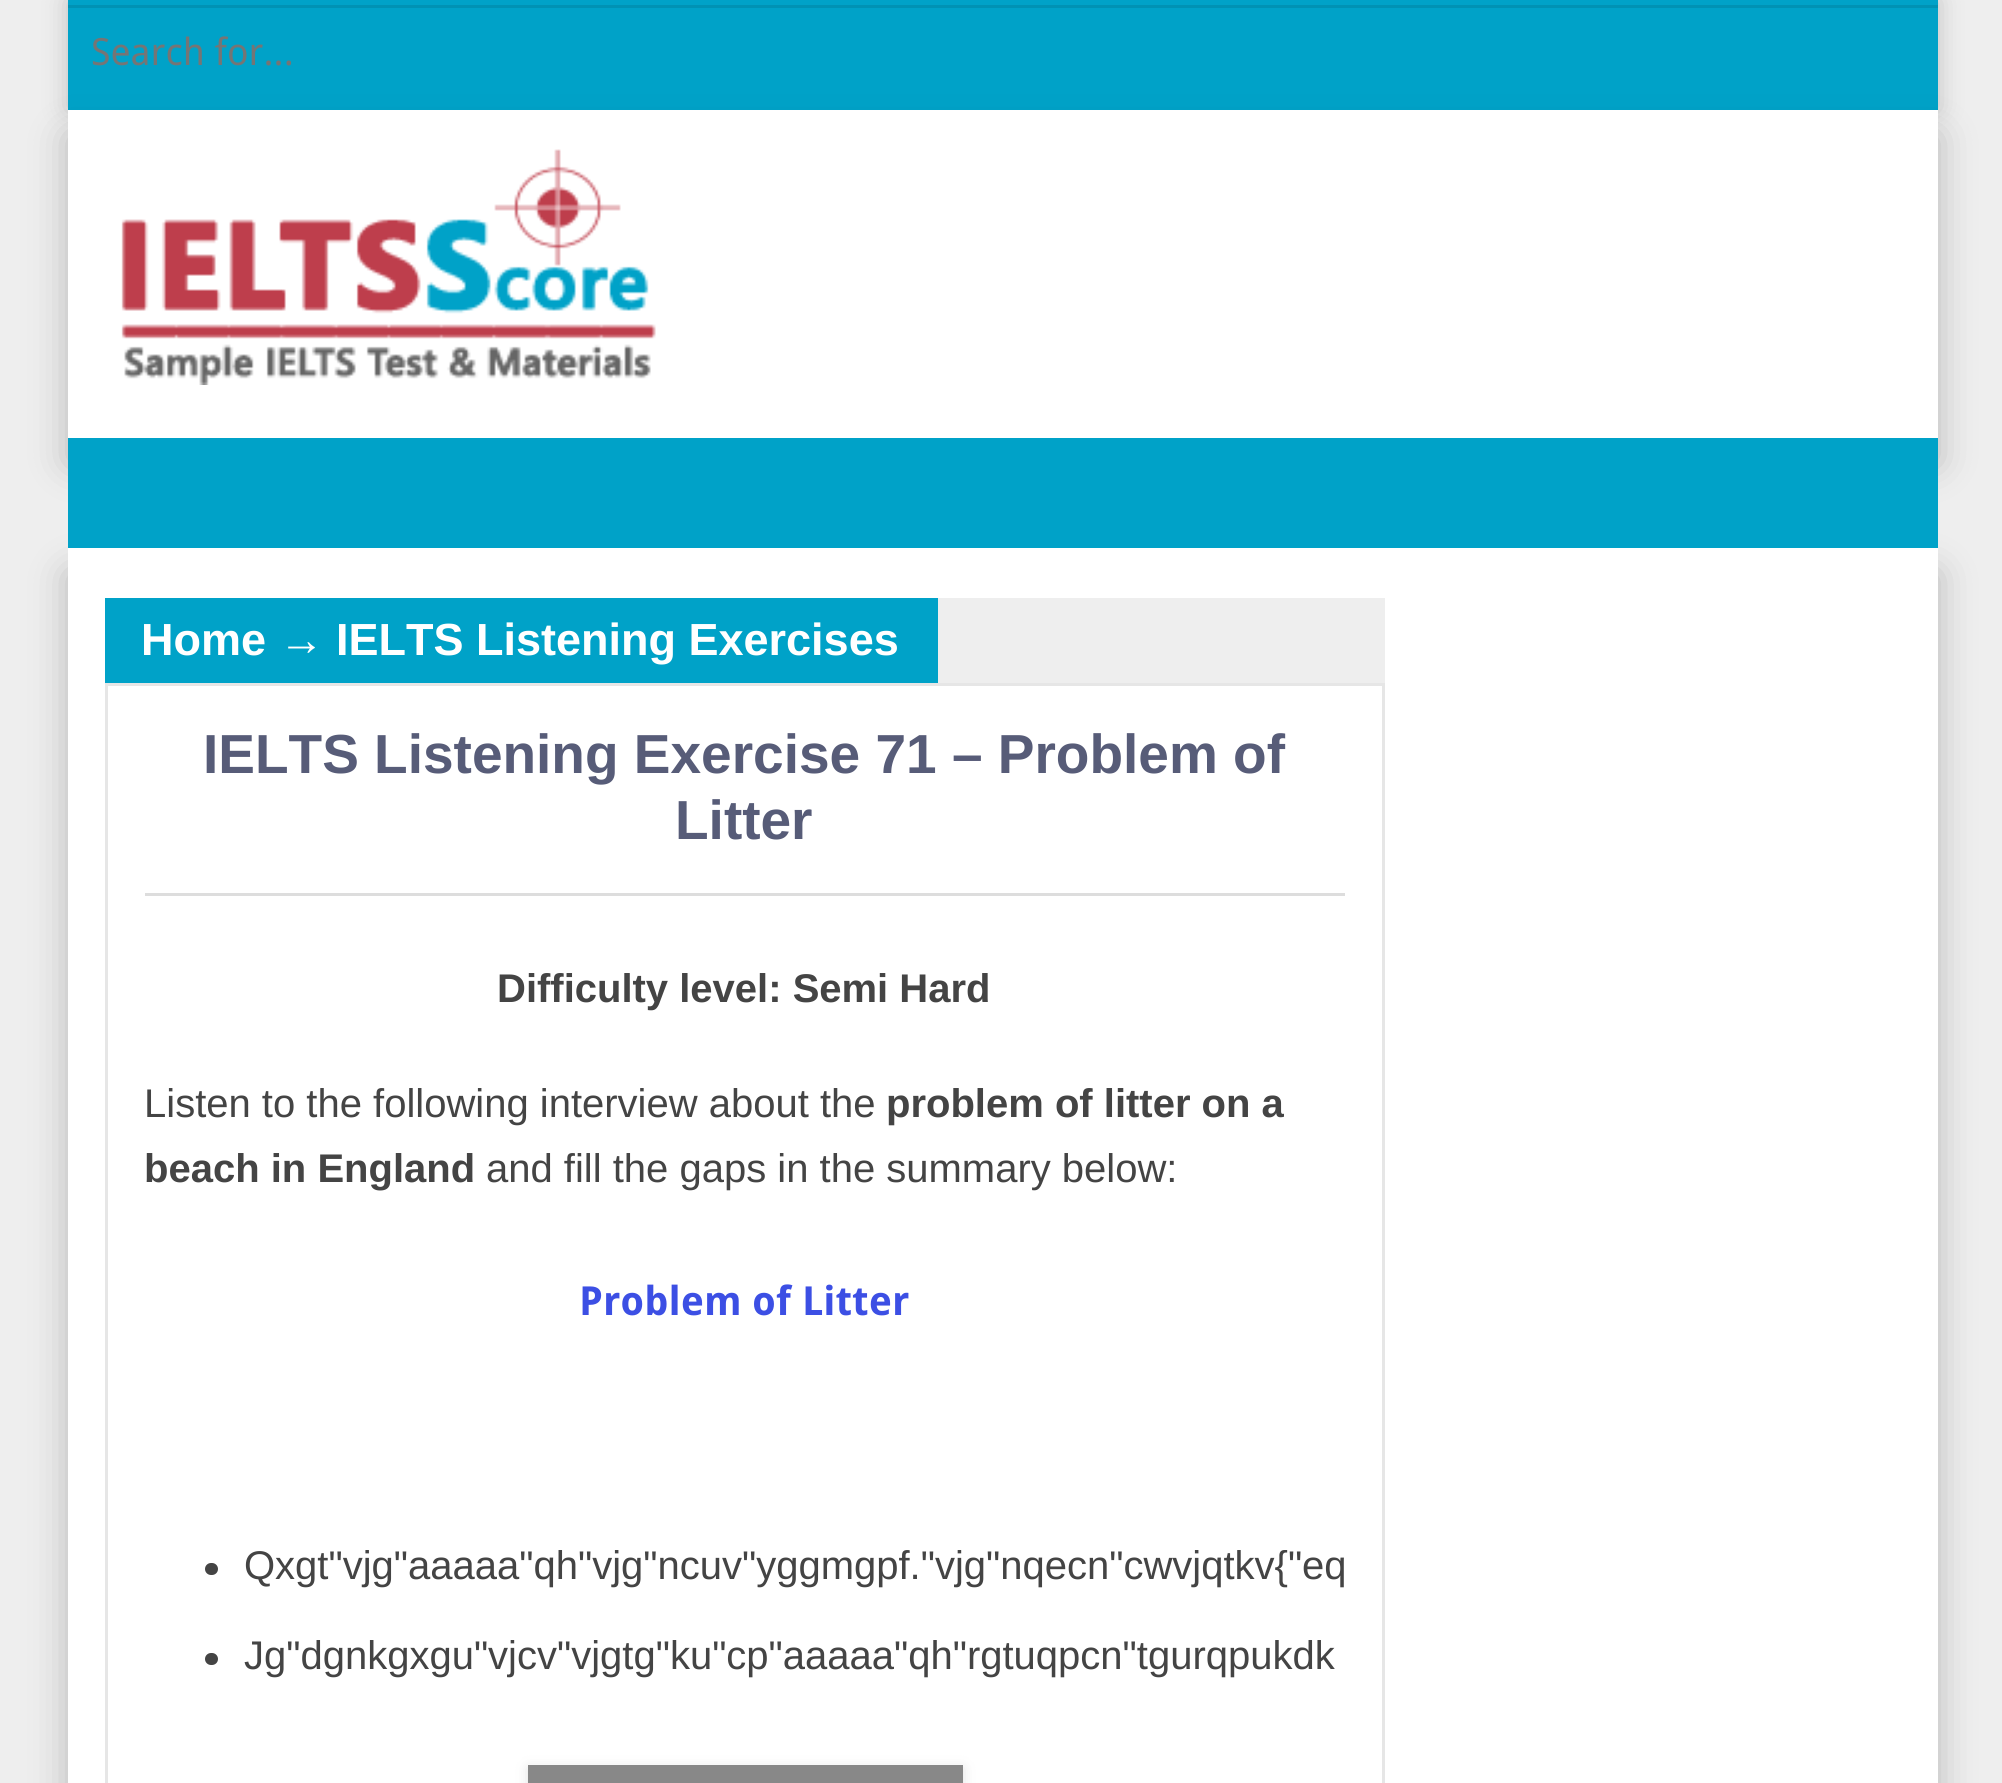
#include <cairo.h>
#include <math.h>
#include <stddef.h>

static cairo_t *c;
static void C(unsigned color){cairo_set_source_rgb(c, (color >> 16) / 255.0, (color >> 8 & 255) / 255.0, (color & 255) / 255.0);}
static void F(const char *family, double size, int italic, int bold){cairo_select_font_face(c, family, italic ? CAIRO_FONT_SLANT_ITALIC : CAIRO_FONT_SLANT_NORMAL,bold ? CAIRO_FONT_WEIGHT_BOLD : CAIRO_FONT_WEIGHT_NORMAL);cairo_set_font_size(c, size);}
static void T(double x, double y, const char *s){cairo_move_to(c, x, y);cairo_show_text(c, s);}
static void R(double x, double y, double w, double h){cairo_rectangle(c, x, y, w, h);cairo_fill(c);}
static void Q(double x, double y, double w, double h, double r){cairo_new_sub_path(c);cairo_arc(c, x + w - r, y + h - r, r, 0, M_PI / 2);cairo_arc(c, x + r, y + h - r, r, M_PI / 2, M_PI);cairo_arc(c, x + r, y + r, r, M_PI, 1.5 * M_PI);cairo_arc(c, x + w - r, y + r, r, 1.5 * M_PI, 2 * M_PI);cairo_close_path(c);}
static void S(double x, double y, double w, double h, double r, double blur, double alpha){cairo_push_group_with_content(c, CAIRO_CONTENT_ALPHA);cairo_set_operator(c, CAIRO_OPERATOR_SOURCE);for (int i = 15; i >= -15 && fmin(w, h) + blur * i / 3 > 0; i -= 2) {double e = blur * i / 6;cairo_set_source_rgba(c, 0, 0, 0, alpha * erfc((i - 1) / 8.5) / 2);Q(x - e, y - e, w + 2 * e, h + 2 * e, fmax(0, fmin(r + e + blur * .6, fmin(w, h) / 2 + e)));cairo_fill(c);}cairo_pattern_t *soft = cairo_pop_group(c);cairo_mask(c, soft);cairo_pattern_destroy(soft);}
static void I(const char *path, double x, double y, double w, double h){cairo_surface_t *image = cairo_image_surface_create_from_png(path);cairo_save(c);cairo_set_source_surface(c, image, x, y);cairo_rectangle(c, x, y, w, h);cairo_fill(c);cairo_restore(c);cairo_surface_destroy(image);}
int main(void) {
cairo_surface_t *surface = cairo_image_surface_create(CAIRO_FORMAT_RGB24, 2002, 1783);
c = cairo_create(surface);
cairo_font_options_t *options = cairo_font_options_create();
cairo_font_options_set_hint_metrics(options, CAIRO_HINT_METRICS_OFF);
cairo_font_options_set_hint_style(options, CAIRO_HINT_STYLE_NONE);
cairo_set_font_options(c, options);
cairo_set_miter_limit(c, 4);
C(0xeeeeee);
cairo_paint(c);
C(0x000000);
S(68,0,1870,110,0,12.5,.2);
C(0x00a2c8);
R(68,0,1870,110);
C(0x0092b4);
R(68,5,1870,3);
F("Droid Sans",37.5,0,0);
C(0x757575);
T(91,65,"Search for...");
C(0x000000);
S(68,135,1870,328,0,19,.23);
C(0xffffff);
R(68,110,1870,328);
I("1.png",121,149,535,236);
C(0x000000);
S(68,573,1870,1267,0,19,.23);
C(0x00a2c8);
R(68,438,1870,110);
C(0xffffff);
R(68,548,1870,1235);
C(0xeeeeee);
R(938,598,447,85);
C(0x00a2c8);
R(105,598,833,85);
F("Arimo",45,0,1);
C(0xffffff);
T(141,655,"Home");
F("Liberation Sans",45,0,1);
T(279,655,"→");
F("Arimo",45,0,1);
T(336,655,"IELTS Listening Exercises");
cairo_rectangle(c,106.5,684.5,1277,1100);
C(0xe6e6e6);
cairo_set_line_width(c,3);
cairo_stroke(c);
C(0xdddddd);
R(145,893,1200,3);
F("Arimo",55,0,1);
C(0x575c78);
T(203,773,"IELTS Listening Exercise 71 – Problem of");
T(675,839,"Litter");
F("Arimo",40,0,1);
C(0x444444);
T(497,1002,"Difficulty level: Semi Hard");
F("Arimo",40,0,0);
T(144,1117,"Listen to the following interview about the");
F("Arimo",40,0,1);
T(886,1117,"problem of litter on a");
T(144,1182,"beach in England");
F("Arimo",40,0,0);
T(486,1182,"and fill the gaps in the summary below:");
F("Droid Sans",40,0,1);
C(0x3c4fe4);
T(579,1315,"Problem of Litter");
C(0x444444);
Q(205,1563,13,12,6);
cairo_fill(c);
F("Arimo",40,0,0);
T(244,1579,"Qxgt\"vjg\"aaaaa\"qh\"vjg\"ncuv\"yggmgpf.\"vjg\"nqecn\"cwvjqtkv{\"eq");
Q(205,1653,13,12,6);
cairo_fill(c);
T(244,1669,"Jg\"dgnkgxgu\"vjcv\"vjgtg\"ku\"cp\"aaaaa\"qh\"rgtuqpcn\"tgurqpukdk");
C(0xbebebe);
S(528,1768,435,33,0,6,.46);
C(0x888888);
R(528,1765,435,18);
cairo_surface_write_to_png(surface, "o.png");
cairo_font_options_destroy(options);
cairo_destroy(c);
cairo_surface_destroy(surface);
return 0;
}
